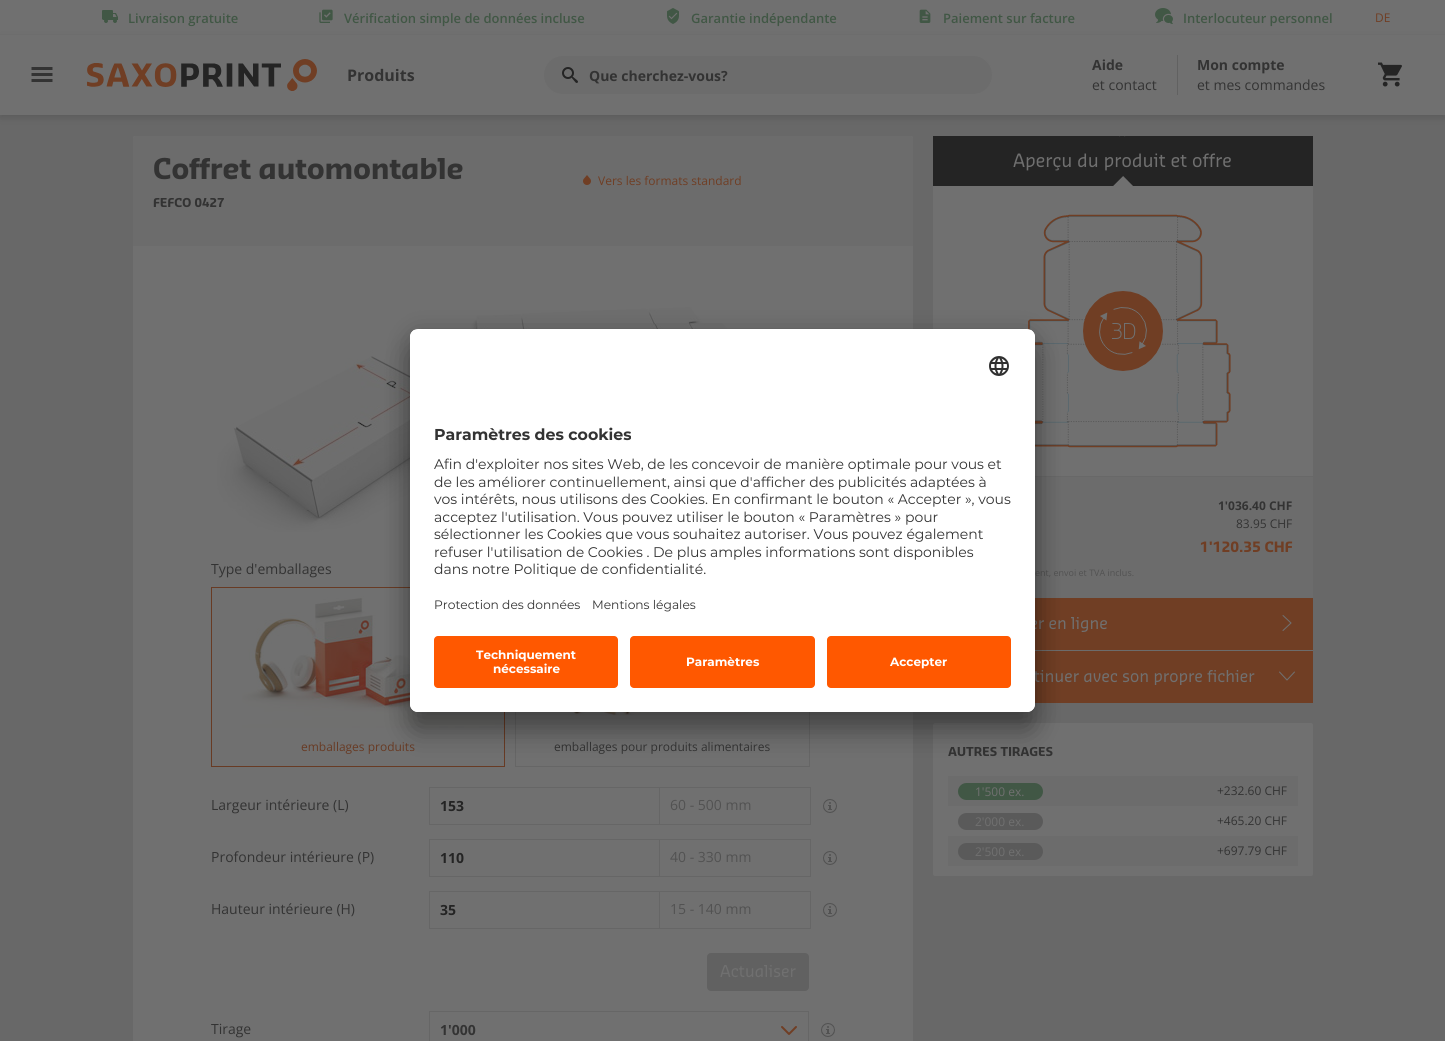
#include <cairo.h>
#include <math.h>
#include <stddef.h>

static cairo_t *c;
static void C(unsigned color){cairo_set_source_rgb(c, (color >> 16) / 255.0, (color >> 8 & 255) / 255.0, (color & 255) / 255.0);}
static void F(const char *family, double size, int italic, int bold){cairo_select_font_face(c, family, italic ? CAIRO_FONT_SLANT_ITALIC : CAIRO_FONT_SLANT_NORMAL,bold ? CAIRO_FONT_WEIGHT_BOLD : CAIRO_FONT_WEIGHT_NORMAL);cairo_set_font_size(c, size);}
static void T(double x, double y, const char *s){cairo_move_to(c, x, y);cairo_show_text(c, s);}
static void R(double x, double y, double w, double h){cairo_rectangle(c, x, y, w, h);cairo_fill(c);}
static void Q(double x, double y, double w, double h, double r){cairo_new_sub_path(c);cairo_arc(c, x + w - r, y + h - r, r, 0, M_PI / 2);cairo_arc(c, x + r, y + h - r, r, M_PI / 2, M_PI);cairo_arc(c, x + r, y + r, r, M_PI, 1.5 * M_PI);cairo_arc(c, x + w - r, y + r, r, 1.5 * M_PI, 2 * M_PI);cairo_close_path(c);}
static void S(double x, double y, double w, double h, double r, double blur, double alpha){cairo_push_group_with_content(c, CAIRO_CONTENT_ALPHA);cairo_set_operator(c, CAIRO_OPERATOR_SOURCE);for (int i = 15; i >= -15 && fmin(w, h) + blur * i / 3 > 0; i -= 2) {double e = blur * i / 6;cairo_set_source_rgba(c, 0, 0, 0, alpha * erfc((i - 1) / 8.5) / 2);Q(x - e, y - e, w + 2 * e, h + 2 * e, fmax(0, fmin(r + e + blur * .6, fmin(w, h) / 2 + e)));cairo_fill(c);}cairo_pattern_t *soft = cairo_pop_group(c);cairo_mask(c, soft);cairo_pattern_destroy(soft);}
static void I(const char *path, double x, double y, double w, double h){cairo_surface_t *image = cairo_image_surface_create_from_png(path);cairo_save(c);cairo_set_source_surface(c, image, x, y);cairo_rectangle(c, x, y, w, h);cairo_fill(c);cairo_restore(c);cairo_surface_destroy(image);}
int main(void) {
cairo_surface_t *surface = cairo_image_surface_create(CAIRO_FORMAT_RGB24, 1445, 1041);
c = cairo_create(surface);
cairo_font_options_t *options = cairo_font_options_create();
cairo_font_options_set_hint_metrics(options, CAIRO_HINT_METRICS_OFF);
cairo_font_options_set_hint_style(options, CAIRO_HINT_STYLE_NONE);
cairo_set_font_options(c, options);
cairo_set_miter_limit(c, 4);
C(0x707070);
cairo_paint(c);
I("1.png",102,10,16,13);
F("Open Sans SemiBold",13,0,0);
C(0x415745);
T(128,23,"Livraison gratuite");
I("2.png",319,9,14,14);
T(344,23,"Vérification simple de données incluse");
I("3.png",667,8,12,16);
T(691,23,"Garantie indépendante");
I("4.png",919,9,12,14);
T(943,23,"Paiement sur facture");
I("5.png",1155,8,18,16);
T(1183,23,"Interlocuteur personnel");
F("Open Sans",12,0,0);
C(0x703e24);
T(1375,22,"DE");
C(0x686868);
R(0,115,1445,926);
cairo_save(c);
cairo_set_fill_rule(c,CAIRO_FILL_RULE_EVEN_ODD);
cairo_new_path(c);
cairo_move_to(c,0,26);
cairo_line_to(c,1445,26);
cairo_line_to(c,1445,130);
cairo_line_to(c,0,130);
cairo_close_path(c);
cairo_move_to(c,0,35);
cairo_line_to(c,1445,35);
cairo_line_to(c,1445,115);
cairo_line_to(c,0,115);
cairo_close_path(c);
cairo_clip(c);
C(0x242424);
S(0,38,1445,80,0,3.5,.2);
cairo_restore(c);
I("6.png",31,67,22,15);
I("7.png",87,59,230,32);
F("Open Sans",16,0,1);
C(0x333333);
T(347,81,"Produits");
C(0x6c6c6c);
Q(543.5,55.5,449,39,19.5);
cairo_fill_preserve(c);
C(0x707070);
cairo_set_line_width(c,1);
cairo_stroke(c);
I("8.png",562,67,16,16);
F("Open Sans",14,0,1);
C(0x333333);
T(589,81,"Que cherchez-vous?");
T(1092,70,"Aide");
F("Open Sans",14,0,0);
T(1092,90,"et contact");
C(0x616161);
R(1177,55,1,40);
F("Open Sans",14,0,1);
C(0x333333);
T(1197,70,"Mon compte");
F("Open Sans",14,0,0);
T(1197,90,"et mes commandes");
I("9.png",1378,62,24,25);
C(0x707070);
Q(133,136,780,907,2);
cairo_fill(c);
C(0x6c6c6c);
cairo_new_path(c);
cairo_move_to(c,135,136);
cairo_line_to(c,911,136);
cairo_curve_to(c,912,136,913,137,913,138);
cairo_line_to(c,913,246);
cairo_line_to(c,133,246);
cairo_line_to(c,133,138);
cairo_curve_to(c,133,137,134,136,135,136);
cairo_close_path(c);
cairo_fill(c);
I("10.png",154,157,309,23);
I("11.png",153,197,71,11);
I("12.png",583,175,8,10);
F("Open Sans",12,0,0);
C(0x703e24);
T(598,185,"Vers les formats standard");
I("13.png",217,307,554,225);
F("Open Sans",14,0,0);
C(0x333333);
T(211,574,"Type d'emballages");
I("14.png",242,596,262,132);
cairo_rectangle(c,211.5,587.5,293,179);
C(0x683b24);
cairo_stroke(c);
F("Open Sans",12,0,0);
T(301,751,"emballages produits");
I("15.png",544,712,225,4);
cairo_rectangle(c,515.5,587.5,294,179);
C(0x666666);
cairo_stroke(c);
C(0x333333);
T(554,751,"emballages pour produits alimentaires");
F("Open Sans",14,0,0);
T(211,810,"Largeur intérieure (L)");
cairo_rectangle(c,429.5,787.5,230,37);
C(0x666666);
cairo_stroke(c);
F("Open Sans",14,0,1);
C(0x242424);
T(440,811,"153");
C(0x666666);
R(660,787,151,1);
R(810,787,1,38);
R(660,824,151,1);
F("Open Sans",14,0,0);
C(0x525252);
T(670,810,"60 - 500 mm");
I("16.png",823,799,14,14);
C(0x333333);
T(211,862,"Profondeur intérieure (P)");
cairo_rectangle(c,429.5,839.5,230,37);
C(0x666666);
cairo_stroke(c);
F("Open Sans",14,0,1);
C(0x242424);
T(440,863,"110");
C(0x666666);
R(660,839,151,1);
R(810,839,1,38);
R(660,876,151,1);
F("Open Sans",14,0,0);
C(0x525252);
T(670,862,"40 - 330 mm");
I("16.png",823,851,14,14);
C(0x333333);
T(211,914,"Hauteur intérieure (H)");
cairo_rectangle(c,429.5,891.5,230,37);
C(0x666666);
cairo_stroke(c);
F("Open Sans",14,0,1);
C(0x242424);
T(440,915,"35");
C(0x666666);
R(660,891,151,1);
R(810,891,1,38);
R(660,928,151,1);
F("Open Sans",14,0,0);
C(0x525252);
T(670,914,"15 - 140 mm");
I("16.png",823,903,14,14);
C(0x616161);
Q(707,953,102,38,4);
cairo_fill(c);
I("17.png",720,965,76,13);
C(0x333333);
T(211,1034,"Tirage");
cairo_rectangle(c,429.5,1011.5,379,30);
C(0x666666);
cairo_stroke(c);
F("Open Sans",14,0,1);
C(0x333333);
T(440,1035,"1'000");
I("18.png",781,1026,16,9);
I("16.png",821,1023,14,14);
C(0x707070);
R(933,186,380,290);
C(0x242424);
R(933,136,380,50);
I("19.png",1113,136,20,50);
I("20.png",1013,153,218,18);
I("21.png",1028,214,203,234);
I("22.png",1083,291,80,80);
C(0x6c6c6c);
R(1035,477,278,121);
F("Open Sans",12,0,1);
C(0x333333);
T(1218,510,"1'036.40 CHF");
F("Open Sans",12,0,0);
T(1236,528,"83.95 CHF");
I("23.png",1200,541,93,12);
F("Open Sans",9,0,0);
C(0x525252);
T(1035,576,"ent, envoi et TVA inclus.");
C(0x6c6c6c);
R(1035,650,278,1);
C(0x703e24);
R(1035,598,278,52);
I("24.png",1035,617,72,15);
I("25.png",1282,615,10,16);
R(1035,651,278,52);
I("26.png",1035,670,220,15);
I("27.png",1279,671,16,10);
C(0x707070);
Q(933,723,380,153,2);
cairo_fill(c);
I("28.png",948,746,105,11);
C(0x6c6c6c);
R(948,776,350,30);
C(0x415745);
Q(958,783,85,17,8.5);
cairo_fill(c);
F("Open Sans",12,0,0);
C(0x707070);
T(975,796,"1'500 ex.");
C(0x333333);
T(1217,795,"+232.60 CHF");
C(0x5a5a5a);
Q(958,813,85,17,8.5);
cairo_fill(c);
C(0x707070);
T(975,826,"2'000 ex.");
C(0x333333);
T(1217,825,"+465.20 CHF");
C(0x6c6c6c);
R(948,836,350,30);
C(0x5a5a5a);
Q(958,843,85,17,8.5);
cairo_fill(c);
C(0x707070);
T(975,856,"2'500 ex.");
C(0x333333);
T(1217,855,"+697.79 CHF");
C(0x000000);
S(410,349,625,383,8,14,.3);
S(410,334,625,383,8,13,.22);
C(0xffffff);
Q(410,329,625,383,8);
cairo_fill(c);
cairo_save(c);
Q(410,329,625,383,8);
cairo_clip(c);
cairo_new_path(c);
cairo_move_to(c,418,329);
cairo_line_to(c,1027,329);
cairo_curve_to(c,1031.5,329,1035,332.5,1035,337);
cairo_line_to(c,1035,628);
cairo_line_to(c,410,628);
cairo_line_to(c,410,337);
cairo_curve_to(c,410,332.5,413.5,329,418,329);
cairo_close_path(c);
cairo_clip(c);
R(410,330,625,298);
cairo_restore(c);
I("29.png",989,356,20,20);
F("Montserrat",15.75,0,1);
C(0x333333);
T(434,440,"Paramètres des cookies");
F("Montserrat",14,0,0);
T(434,469,"Afin d'exploiter nos sites Web, de les concevoir de manière optimale pour vous et");
T(434,487,"de les améliorer continuellement, ainsi que d'afficher des publicités adaptées à");
T(434,504,"vos intérêts, nous utilisons des Cookies. En confirmant le bouton « Accepter », vous");
T(434,522,"acceptez l'utilisation. Vous pouvez utiliser le bouton « Paramètres » pour");
T(434,539,"sélectionner les Cookies que vous souhaitez autoriser. Vous pouvez également");
T(434,557,"refuser l'utilisation de Cookies . De plus amples informations sont disponibles");
T(434,574,"dans notre Politique de confidentialité.");
F("Montserrat",12.25,0,0);
T(434,609,"Protection des données");
T(592,609,"Mentions légales");
C(0xffffff);
cairo_new_path(c);
cairo_move_to(c,410,628);
cairo_line_to(c,1035,628);
cairo_line_to(c,1035,704);
cairo_curve_to(c,1035,708.5,1031.5,712,1027,712);
cairo_line_to(c,418,712);
cairo_curve_to(c,413.5,712,410,708.5,410,704);
cairo_close_path(c);
cairo_fill(c);
C(0xff5800);
Q(434,636,184,52,4);
cairo_fill(c);
F("Montserrat",12,0,1);
C(0xffffff);
T(476,659,"Techniquement");
T(493,673,"nécessaire");
C(0xff5800);
Q(630,636,185,52,4);
cairo_fill(c);
C(0xffffff);
T(686,666,"Paramètres");
C(0xff5800);
Q(827,636,184,52,4);
cairo_fill(c);
C(0xffffff);
T(890,666,"Accepter");
cairo_surface_write_to_png(surface, "o.png");
cairo_font_options_destroy(options);
cairo_destroy(c);
cairo_surface_destroy(surface);
return 0;
}
